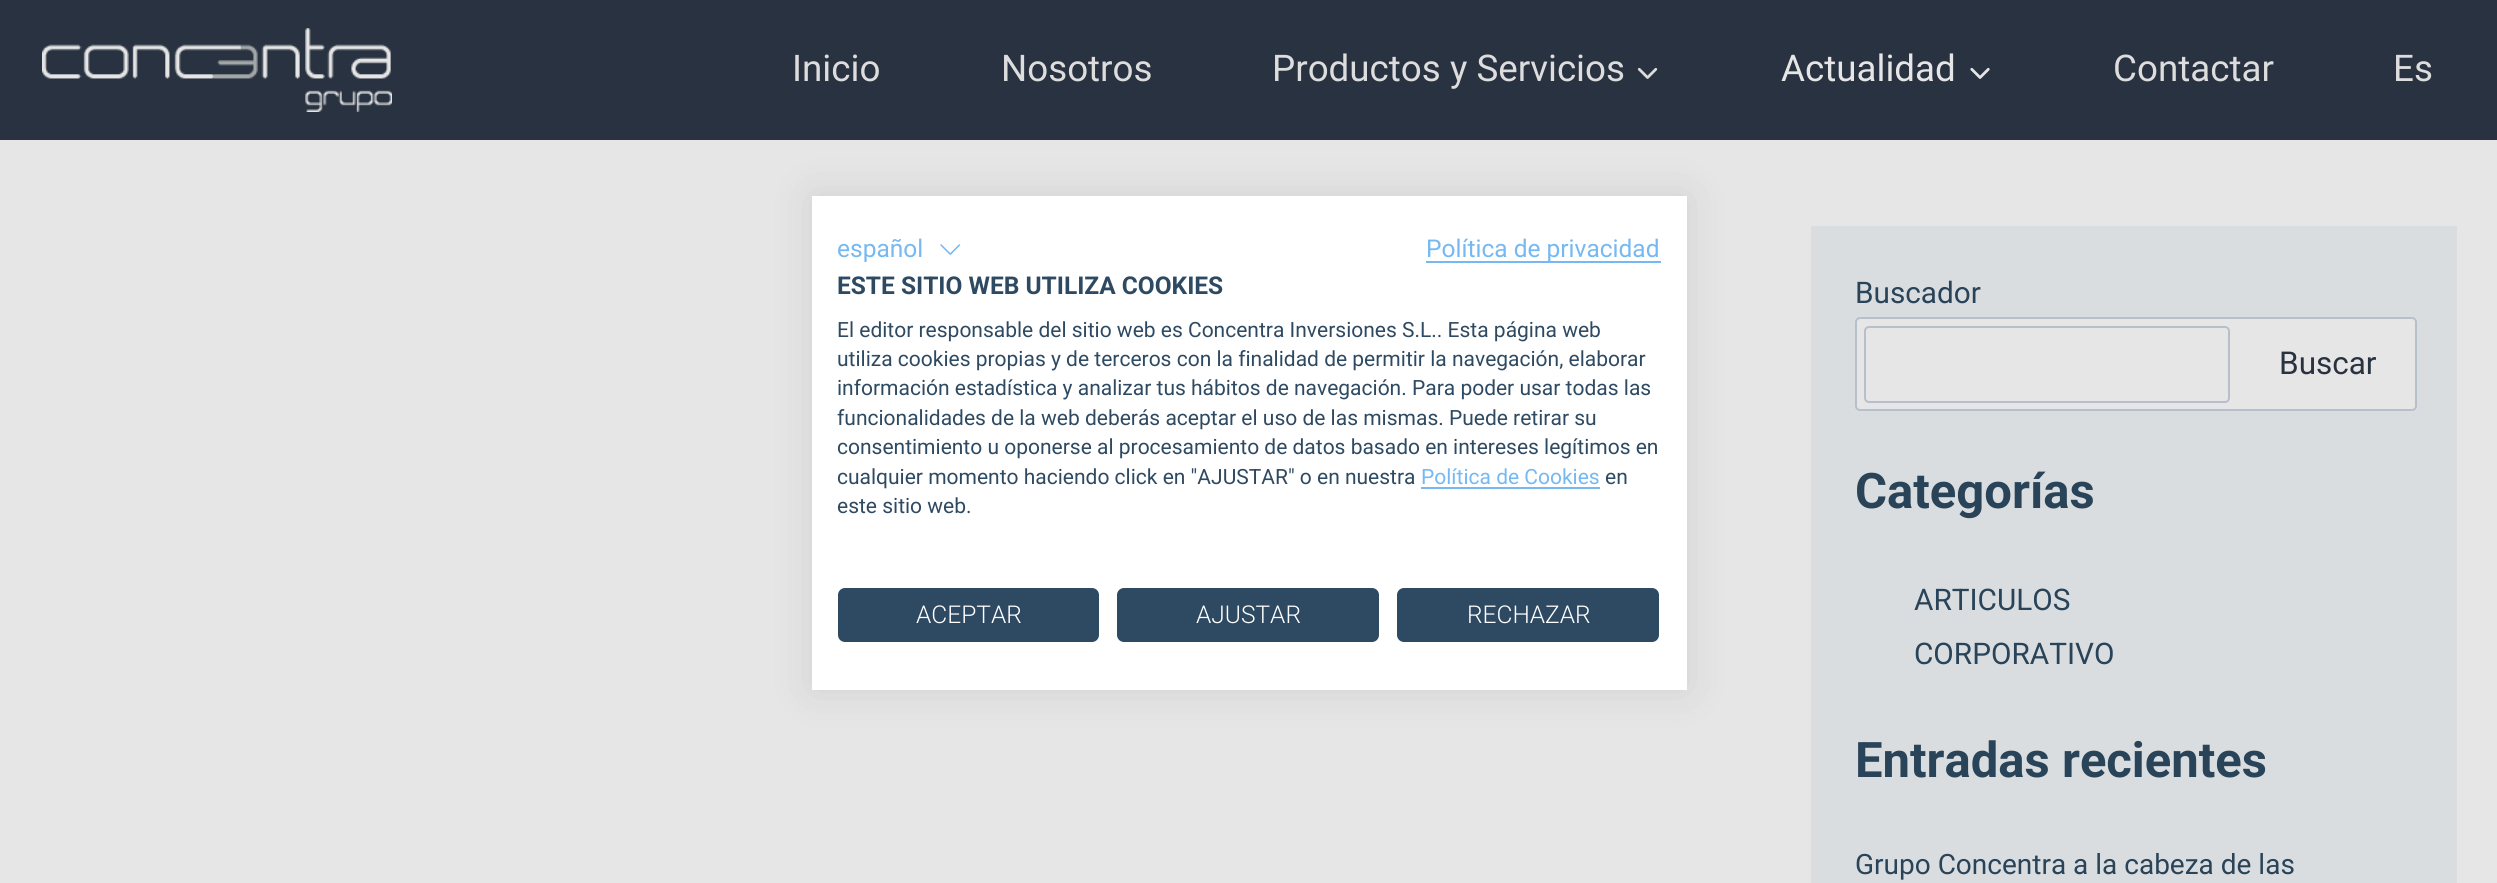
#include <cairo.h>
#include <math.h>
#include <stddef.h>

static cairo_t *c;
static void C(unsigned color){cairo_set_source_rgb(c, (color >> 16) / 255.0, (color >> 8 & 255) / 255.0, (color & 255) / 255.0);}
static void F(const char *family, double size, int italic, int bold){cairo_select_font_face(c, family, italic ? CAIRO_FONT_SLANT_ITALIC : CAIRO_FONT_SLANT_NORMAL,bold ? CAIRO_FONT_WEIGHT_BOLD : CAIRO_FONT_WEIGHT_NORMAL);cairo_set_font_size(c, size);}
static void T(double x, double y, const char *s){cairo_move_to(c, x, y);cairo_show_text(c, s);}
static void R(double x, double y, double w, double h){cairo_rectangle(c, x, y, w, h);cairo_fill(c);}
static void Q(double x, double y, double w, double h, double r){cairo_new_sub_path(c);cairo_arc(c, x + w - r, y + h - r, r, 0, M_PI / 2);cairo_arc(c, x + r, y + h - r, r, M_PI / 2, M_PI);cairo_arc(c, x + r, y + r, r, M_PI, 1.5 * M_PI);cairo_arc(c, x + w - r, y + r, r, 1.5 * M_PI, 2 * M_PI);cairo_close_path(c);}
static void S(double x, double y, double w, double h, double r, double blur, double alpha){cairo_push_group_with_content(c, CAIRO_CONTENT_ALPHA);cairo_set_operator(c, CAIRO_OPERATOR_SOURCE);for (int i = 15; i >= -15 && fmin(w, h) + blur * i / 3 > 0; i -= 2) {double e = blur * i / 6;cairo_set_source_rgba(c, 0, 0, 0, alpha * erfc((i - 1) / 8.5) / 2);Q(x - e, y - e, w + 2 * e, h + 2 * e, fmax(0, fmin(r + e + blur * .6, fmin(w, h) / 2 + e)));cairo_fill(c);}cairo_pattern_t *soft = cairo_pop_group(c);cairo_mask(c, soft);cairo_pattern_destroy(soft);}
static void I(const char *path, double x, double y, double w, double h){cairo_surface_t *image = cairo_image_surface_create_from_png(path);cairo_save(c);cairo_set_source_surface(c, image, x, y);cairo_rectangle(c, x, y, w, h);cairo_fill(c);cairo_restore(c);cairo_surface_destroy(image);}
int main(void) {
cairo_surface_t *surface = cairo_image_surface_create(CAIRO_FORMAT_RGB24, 2497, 883);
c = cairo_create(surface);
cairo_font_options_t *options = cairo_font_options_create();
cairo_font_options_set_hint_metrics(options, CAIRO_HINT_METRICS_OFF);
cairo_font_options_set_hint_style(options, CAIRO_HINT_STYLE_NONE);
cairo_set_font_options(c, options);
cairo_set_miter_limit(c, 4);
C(0xe6e6e6);
cairo_paint(c);
C(0x293241);
R(0,0,2497,140);
I("1.png",42,28,350,84);
F("Roboto",36.75,0,0);
C(0xdddddd);
T(792,81,"Inicio");
T(1001,81,"Nosotros");
T(1272,81,"Productos y Servicios");
I("2.png",1637,67,21,12);
C(0xe6e6e6);
T(1781,81,"Actualidad");
I("3.png",1970,67,20,12);
C(0xdddddd);
T(2113,81,"Contactar");
T(2393,81,"Es");
C(0xdadde0);
R(1811,226,646,657);
F("Roboto",29.75,0,0);
C(0x294358);
T(1855,303,"Buscador");
C(0xe6e6e6);
Q(1856,318,560,92,4);
cairo_fill_preserve(c);
C(0xb7c0ca);
cairo_stroke(c);
Q(1865,327,364,75,4);
cairo_stroke(c);
F("Roboto",31.5,0,0);
C(0x293241);
T(2279,374,"Buscar");
F("Roboto",49,0,1);
C(0x294358);
T(1855,508,"Categorías");
F("Roboto",29.75,0,0);
T(1914,610,"ARTICULOS");
T(1914,664,"CORPORATIVO");
F("Roboto",49,0,1);
T(1855,777,"Entradas recientes");
F("Roboto",28,0,0);
T(1855,874,"Grupo Concentra a la cabeza de las");
C(0x000000);
S(812,196,875,494,0,21,.1);
C(0xffffff);
R(812,196,875,494);
F("Roboto",24.5,0,0);
C(0x75b8f2);
T(837,257,"español");
I("4.png",940,244,21,11);
R(1426,261,235,2);
T(1426,257,"Política de privacidad");
F("Roboto",24.5,0,1);
C(0x2e4a62);
T(837,294,"ESTE SITIO WEB UTILIZA COOKIES");
F("Roboto",21,0,0);
T(837,337,"El editor responsable del sitio web es Concentra Inversiones S.L.. Esta página web");
T(837,366,"utiliza cookies propias y de terceros con la finalidad de permitir la navegación, elaborar");
T(837,395,"información estadística y analizar tus hábitos de navegación. Para poder usar todas las");
T(837,425,"funcionalidades de la web deberás aceptar el uso de las mismas. Puede retirar su");
T(837,454,"consentimiento u oponerse al procesamiento de datos basado en intereses legítimos en");
T(837,484,"cualquier momento haciendo click en \"AJUSTAR\" o en nuestra");
C(0x75b8f2);
T(1421,484,"Política de Cookies");
R(1421,487,179,2);
C(0x2e4a62);
T(1605,484,"en");
T(837,513,"este sitio web.");
Q(839,589,259,52,6);
cairo_fill_preserve(c);
cairo_stroke(c);
F("Roboto Light",24.5,0,0);
C(0xffffff);
T(916,623,"ACEPTAR");
C(0x2e4a62);
Q(1118,589,260,52,6);
cairo_fill_preserve(c);
cairo_stroke(c);
C(0xffffff);
T(1196,623,"AJUSTAR");
C(0x2e4a62);
Q(1398,589,260,52,6);
cairo_fill_preserve(c);
cairo_stroke(c);
C(0xffffff);
T(1467,623,"RECHAZAR");
cairo_surface_write_to_png(surface, "o.png");
cairo_font_options_destroy(options);
cairo_destroy(c);
cairo_surface_destroy(surface);
return 0;
}
